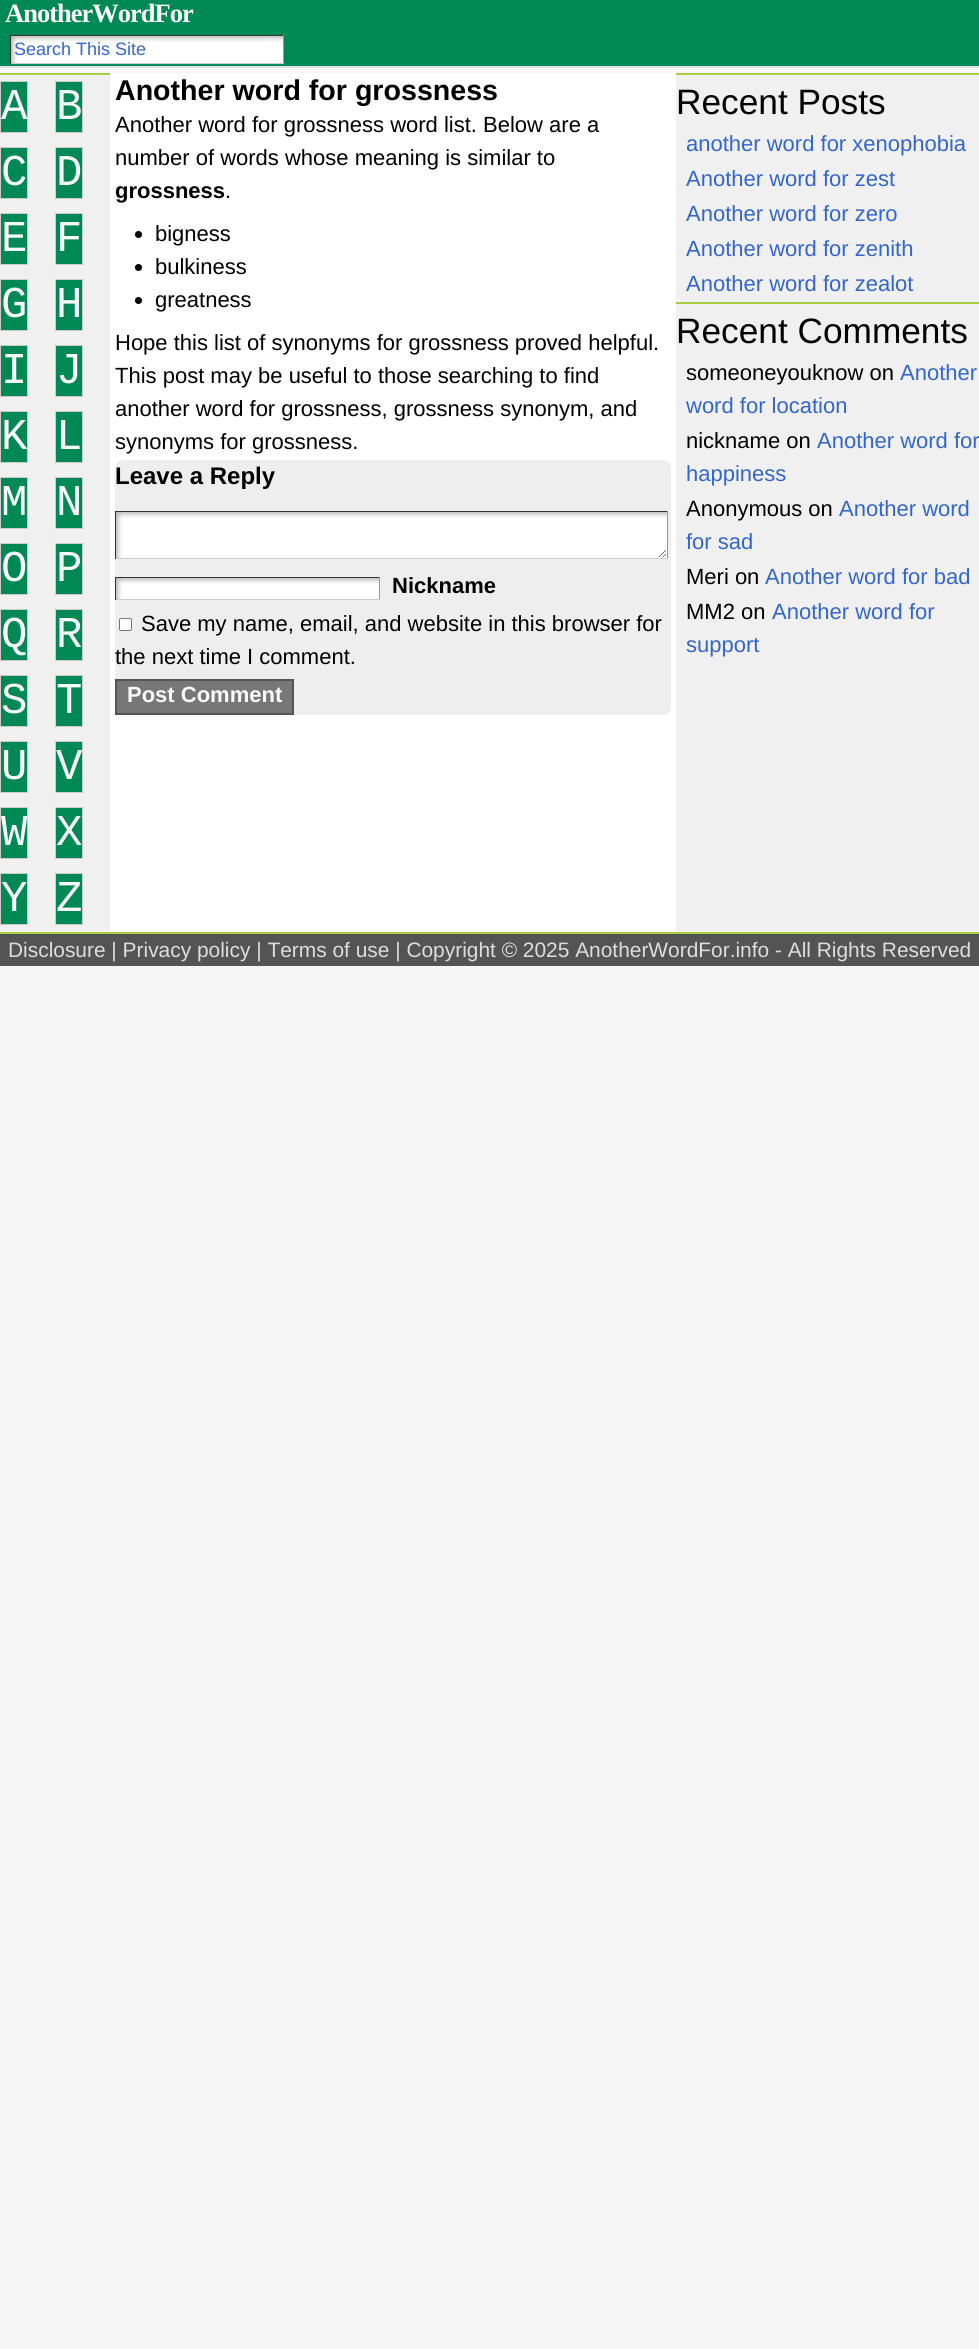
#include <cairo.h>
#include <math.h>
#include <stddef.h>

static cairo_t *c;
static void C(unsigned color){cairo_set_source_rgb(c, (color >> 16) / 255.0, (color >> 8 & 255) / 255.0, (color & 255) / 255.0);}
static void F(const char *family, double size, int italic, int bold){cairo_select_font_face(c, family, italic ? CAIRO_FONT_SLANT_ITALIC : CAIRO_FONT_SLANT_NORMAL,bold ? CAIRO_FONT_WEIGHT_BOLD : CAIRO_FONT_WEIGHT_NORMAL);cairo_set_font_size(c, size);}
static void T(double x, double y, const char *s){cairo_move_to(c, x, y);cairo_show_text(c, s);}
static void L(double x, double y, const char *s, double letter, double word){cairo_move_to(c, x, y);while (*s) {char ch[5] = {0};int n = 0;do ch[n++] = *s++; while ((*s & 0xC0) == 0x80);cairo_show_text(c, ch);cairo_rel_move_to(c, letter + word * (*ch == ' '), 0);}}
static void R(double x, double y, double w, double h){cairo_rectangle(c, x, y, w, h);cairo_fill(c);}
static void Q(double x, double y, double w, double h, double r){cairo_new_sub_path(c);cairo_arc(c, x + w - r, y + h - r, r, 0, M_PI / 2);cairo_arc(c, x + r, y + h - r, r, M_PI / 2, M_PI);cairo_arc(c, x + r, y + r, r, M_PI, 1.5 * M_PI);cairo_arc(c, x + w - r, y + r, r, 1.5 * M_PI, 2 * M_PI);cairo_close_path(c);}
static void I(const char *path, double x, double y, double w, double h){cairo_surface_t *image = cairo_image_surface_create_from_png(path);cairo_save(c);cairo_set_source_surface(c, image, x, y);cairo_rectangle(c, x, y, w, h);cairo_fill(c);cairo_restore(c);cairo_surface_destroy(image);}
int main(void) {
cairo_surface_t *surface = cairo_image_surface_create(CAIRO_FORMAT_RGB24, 979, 2349);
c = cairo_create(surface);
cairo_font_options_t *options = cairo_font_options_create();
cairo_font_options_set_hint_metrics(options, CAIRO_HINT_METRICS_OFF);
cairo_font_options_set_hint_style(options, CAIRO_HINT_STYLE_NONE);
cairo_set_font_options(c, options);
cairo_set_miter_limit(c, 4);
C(0xf6f6f6);
cairo_paint(c);
C(0x008855);
R(0,0,979,66);
F("Liberation Serif",26.5,0,1);
C(0xfafafa);
L(5,22,"AnotherWordFor",-1,0);
I("1.png",11,36,272,27);
C(0x333333);
R(10,35,274,1);
C(0x999999);
R(283,35,1,29);
C(0xcccccc);
R(10,63,274,1);
C(0x333333);
R(10,35,1,29);
F("Liberation Sans",18,0,0);
C(0x3366cc);
T(14,55,"Search This Site");
C(0xe0e0e0);
R(0,66,979,2);
C(0xffffff);
R(110,73,566,859);
C(0xf0f0f0);
R(0,75,110,857);
C(0xa8ce40);
R(0,73,110,2);
C(0x008855);
cairo_rectangle(c,.5,81.5,27,51);
cairo_fill_preserve(c);
C(0xcccccc);
cairo_set_line_width(c,1);
cairo_stroke(c);
F("Liberation Mono",44,0,0);
C(0xfafafa);
T(1,119,"A");
C(0x008855);
cairo_rectangle(c,55.5,81.5,27,51);
cairo_fill_preserve(c);
C(0xcccccc);
cairo_stroke(c);
C(0xfafafa);
T(56,119,"B");
C(0x008855);
cairo_rectangle(c,.5,147.5,27,51);
cairo_fill_preserve(c);
C(0xcccccc);
cairo_stroke(c);
C(0xfafafa);
T(1,185,"C");
C(0x008855);
cairo_rectangle(c,55.5,147.5,27,51);
cairo_fill_preserve(c);
C(0xcccccc);
cairo_stroke(c);
C(0xfafafa);
T(56,185,"D");
C(0x008855);
cairo_rectangle(c,.5,213.5,27,51);
cairo_fill_preserve(c);
C(0xcccccc);
cairo_stroke(c);
C(0xfafafa);
T(1,251,"E");
C(0x008855);
cairo_rectangle(c,55.5,213.5,27,51);
cairo_fill_preserve(c);
C(0xcccccc);
cairo_stroke(c);
C(0xfafafa);
T(56,251,"F");
C(0x008855);
cairo_rectangle(c,.5,279.5,27,51);
cairo_fill_preserve(c);
C(0xcccccc);
cairo_stroke(c);
C(0xfafafa);
T(1,317,"G");
C(0x008855);
cairo_rectangle(c,55.5,279.5,27,51);
cairo_fill_preserve(c);
C(0xcccccc);
cairo_stroke(c);
C(0xfafafa);
T(56,317,"H");
C(0x008855);
cairo_rectangle(c,.5,345.5,27,51);
cairo_fill_preserve(c);
C(0xcccccc);
cairo_stroke(c);
C(0xfafafa);
T(1,383,"I");
C(0x008855);
cairo_rectangle(c,55.5,345.5,27,51);
cairo_fill_preserve(c);
C(0xcccccc);
cairo_stroke(c);
C(0xfafafa);
T(56,383,"J");
C(0x008855);
cairo_rectangle(c,.5,411.5,27,51);
cairo_fill_preserve(c);
C(0xcccccc);
cairo_stroke(c);
C(0xfafafa);
T(1,449,"K");
C(0x008855);
cairo_rectangle(c,55.5,411.5,27,51);
cairo_fill_preserve(c);
C(0xcccccc);
cairo_stroke(c);
C(0xfafafa);
T(56,449,"L");
C(0x008855);
cairo_rectangle(c,.5,477.5,27,51);
cairo_fill_preserve(c);
C(0xcccccc);
cairo_stroke(c);
C(0xfafafa);
T(1,515,"M");
C(0x008855);
cairo_rectangle(c,55.5,477.5,27,51);
cairo_fill_preserve(c);
C(0xcccccc);
cairo_stroke(c);
C(0xfafafa);
T(56,515,"N");
C(0x008855);
cairo_rectangle(c,.5,543.5,27,51);
cairo_fill_preserve(c);
C(0xcccccc);
cairo_stroke(c);
C(0xfafafa);
T(1,581,"O");
C(0x008855);
cairo_rectangle(c,55.5,543.5,27,51);
cairo_fill_preserve(c);
C(0xcccccc);
cairo_stroke(c);
C(0xfafafa);
T(56,581,"P");
C(0x008855);
cairo_rectangle(c,.5,609.5,27,51);
cairo_fill_preserve(c);
C(0xcccccc);
cairo_stroke(c);
C(0xfafafa);
T(1,647,"Q");
C(0x008855);
cairo_rectangle(c,55.5,609.5,27,51);
cairo_fill_preserve(c);
C(0xcccccc);
cairo_stroke(c);
C(0xfafafa);
T(56,647,"R");
C(0x008855);
cairo_rectangle(c,.5,675.5,27,51);
cairo_fill_preserve(c);
C(0xcccccc);
cairo_stroke(c);
C(0xfafafa);
T(1,713,"S");
C(0x008855);
cairo_rectangle(c,55.5,675.5,27,51);
cairo_fill_preserve(c);
C(0xcccccc);
cairo_stroke(c);
C(0xfafafa);
T(56,713,"T");
C(0x008855);
cairo_rectangle(c,.5,741.5,27,51);
cairo_fill_preserve(c);
C(0xcccccc);
cairo_stroke(c);
C(0xfafafa);
T(1,779,"U");
C(0x008855);
cairo_rectangle(c,55.5,741.5,27,51);
cairo_fill_preserve(c);
C(0xcccccc);
cairo_stroke(c);
C(0xfafafa);
T(56,779,"V");
C(0x008855);
cairo_rectangle(c,.5,807.5,27,51);
cairo_fill_preserve(c);
C(0xcccccc);
cairo_stroke(c);
C(0xfafafa);
T(1,845,"W");
C(0x008855);
cairo_rectangle(c,55.5,807.5,27,51);
cairo_fill_preserve(c);
C(0xcccccc);
cairo_stroke(c);
C(0xfafafa);
T(56,845,"X");
C(0x008855);
cairo_rectangle(c,.5,873.5,27,51);
cairo_fill_preserve(c);
C(0xcccccc);
cairo_stroke(c);
C(0xfafafa);
T(1,911,"Y");
C(0x008855);
cairo_rectangle(c,55.5,873.5,27,51);
cairo_fill_preserve(c);
C(0xcccccc);
cairo_stroke(c);
C(0xfafafa);
T(56,911,"Z");
F("Liberation Sans",28.6,0,1);
C(0x000000);
T(115,100,"Another word for grossness");
F("Liberation Sans",22,0,0);
T(115,132,"Another word for grossness word list. Below are a");
T(115,165,"number of words whose meaning is similar to");
F("Liberation Sans",22,0,1);
T(115,198,"grossness");
F("Liberation Sans",22,0,0);
T(225,198,".");
cairo_new_path(c);
cairo_arc(c,138.5,234.5,3.5,0,2 * M_PI);
cairo_fill(c);
T(155,241,"bigness");
cairo_new_path(c);
cairo_arc(c,138.5,267.5,3.5,0,2 * M_PI);
cairo_fill(c);
T(155,274,"bulkiness");
cairo_new_path(c);
cairo_arc(c,138.5,300.5,3.5,0,2 * M_PI);
cairo_fill(c);
T(155,307,"greatness");
T(115,350,"Hope this list of synonyms for grossness proved helpful.");
T(115,383,"This post may be useful to those searching to find");
T(115,416,"another word for grossness, grossness synonym, and");
T(115,449,"synonyms for grossness.");
C(0xeeeeee);
Q(115,460,556,255,8);
cairo_fill(c);
F("Liberation Sans",24,0,1);
C(0x000000);
T(115,484,"Leave a Reply");
I("2.png",116,512,551,46);
C(0x333333);
R(115,511,553,1);
C(0x999999);
R(667,511,1,48);
C(0xcccccc);
R(115,558,553,1);
C(0x333333);
R(115,511,1,48);
I("3.png",116,578,263,21);
R(115,577,265,1);
C(0x999999);
R(379,577,1,23);
C(0xcccccc);
R(115,599,265,1);
C(0x333333);
R(115,577,1,23);
F("Liberation Sans",22,0,1);
C(0x000000);
T(392,593,"Nickname");
C(0xffffff);
Q(119.5,618.5,12,12,1.5);
cairo_fill_preserve(c);
C(0x767676);
cairo_stroke(c);
F("Liberation Sans",22,0,0);
C(0x000000);
T(141,631,"Save my name, email, and website in this browser for");
T(115,664,"the next time I comment.");
C(0x777777);
cairo_rectangle(c,116,680,177,34);
cairo_fill_preserve(c);
C(0x555555);
cairo_set_line_width(c,2);
cairo_stroke(c);
F("Liberation Sans",22,0,1);
C(0xfafafa);
T(127,702,"Post Comment");
C(0xf0f0f0);
R(676,75,303,857);
C(0xa8ce40);
R(676,73,303,2);
F("Liberation Sans",35.25,0,0);
C(0x000000);
T(676,114,"Recent Posts");
F("Liberation Sans",22,0,0);
C(0x3366cc);
T(686,151,"another word for xenophobia");
T(686,186,"Another word for zest");
T(686,221,"Another word for zero");
T(686,256,"Another word for zenith");
T(686,291,"Another word for zealot");
C(0xa8ce40);
R(676,302,303,2);
F("Liberation Sans",35.25,0,0);
C(0x000000);
T(676,343,"Recent Comments");
F("Liberation Sans",22,0,0);
T(686,380,"someoneyouknow on");
C(0x3366cc);
T(900,380,"Another");
T(686,413,"word for location");
C(0x000000);
T(686,448,"nickname on");
C(0x3366cc);
T(817,448,"Another word for");
T(686,481,"happiness");
C(0x000000);
T(686,516,"Anonymous on");
C(0x3366cc);
T(839,516,"Another word");
T(686,549,"for sad");
C(0x000000);
T(686,584,"Meri on");
C(0x3366cc);
T(765,584,"Another word for bad");
C(0x000000);
T(686,619,"MM2 on");
C(0x3366cc);
T(772,619,"Another word for");
T(686,652,"support");
C(0x545454);
R(0,934,979,32);
C(0xa8ce40);
R(0,932,979,2);
F("Liberation Sans",20.9,0,0);
C(0xdddddd);
T(8,957,"Disclosure | Privacy policy | Terms of use | Copyright © 2025 AnotherWordFor.info - All Rights Reserved");
cairo_surface_write_to_png(surface, "o.png");
cairo_font_options_destroy(options);
cairo_destroy(c);
cairo_surface_destroy(surface);
return 0;
}
